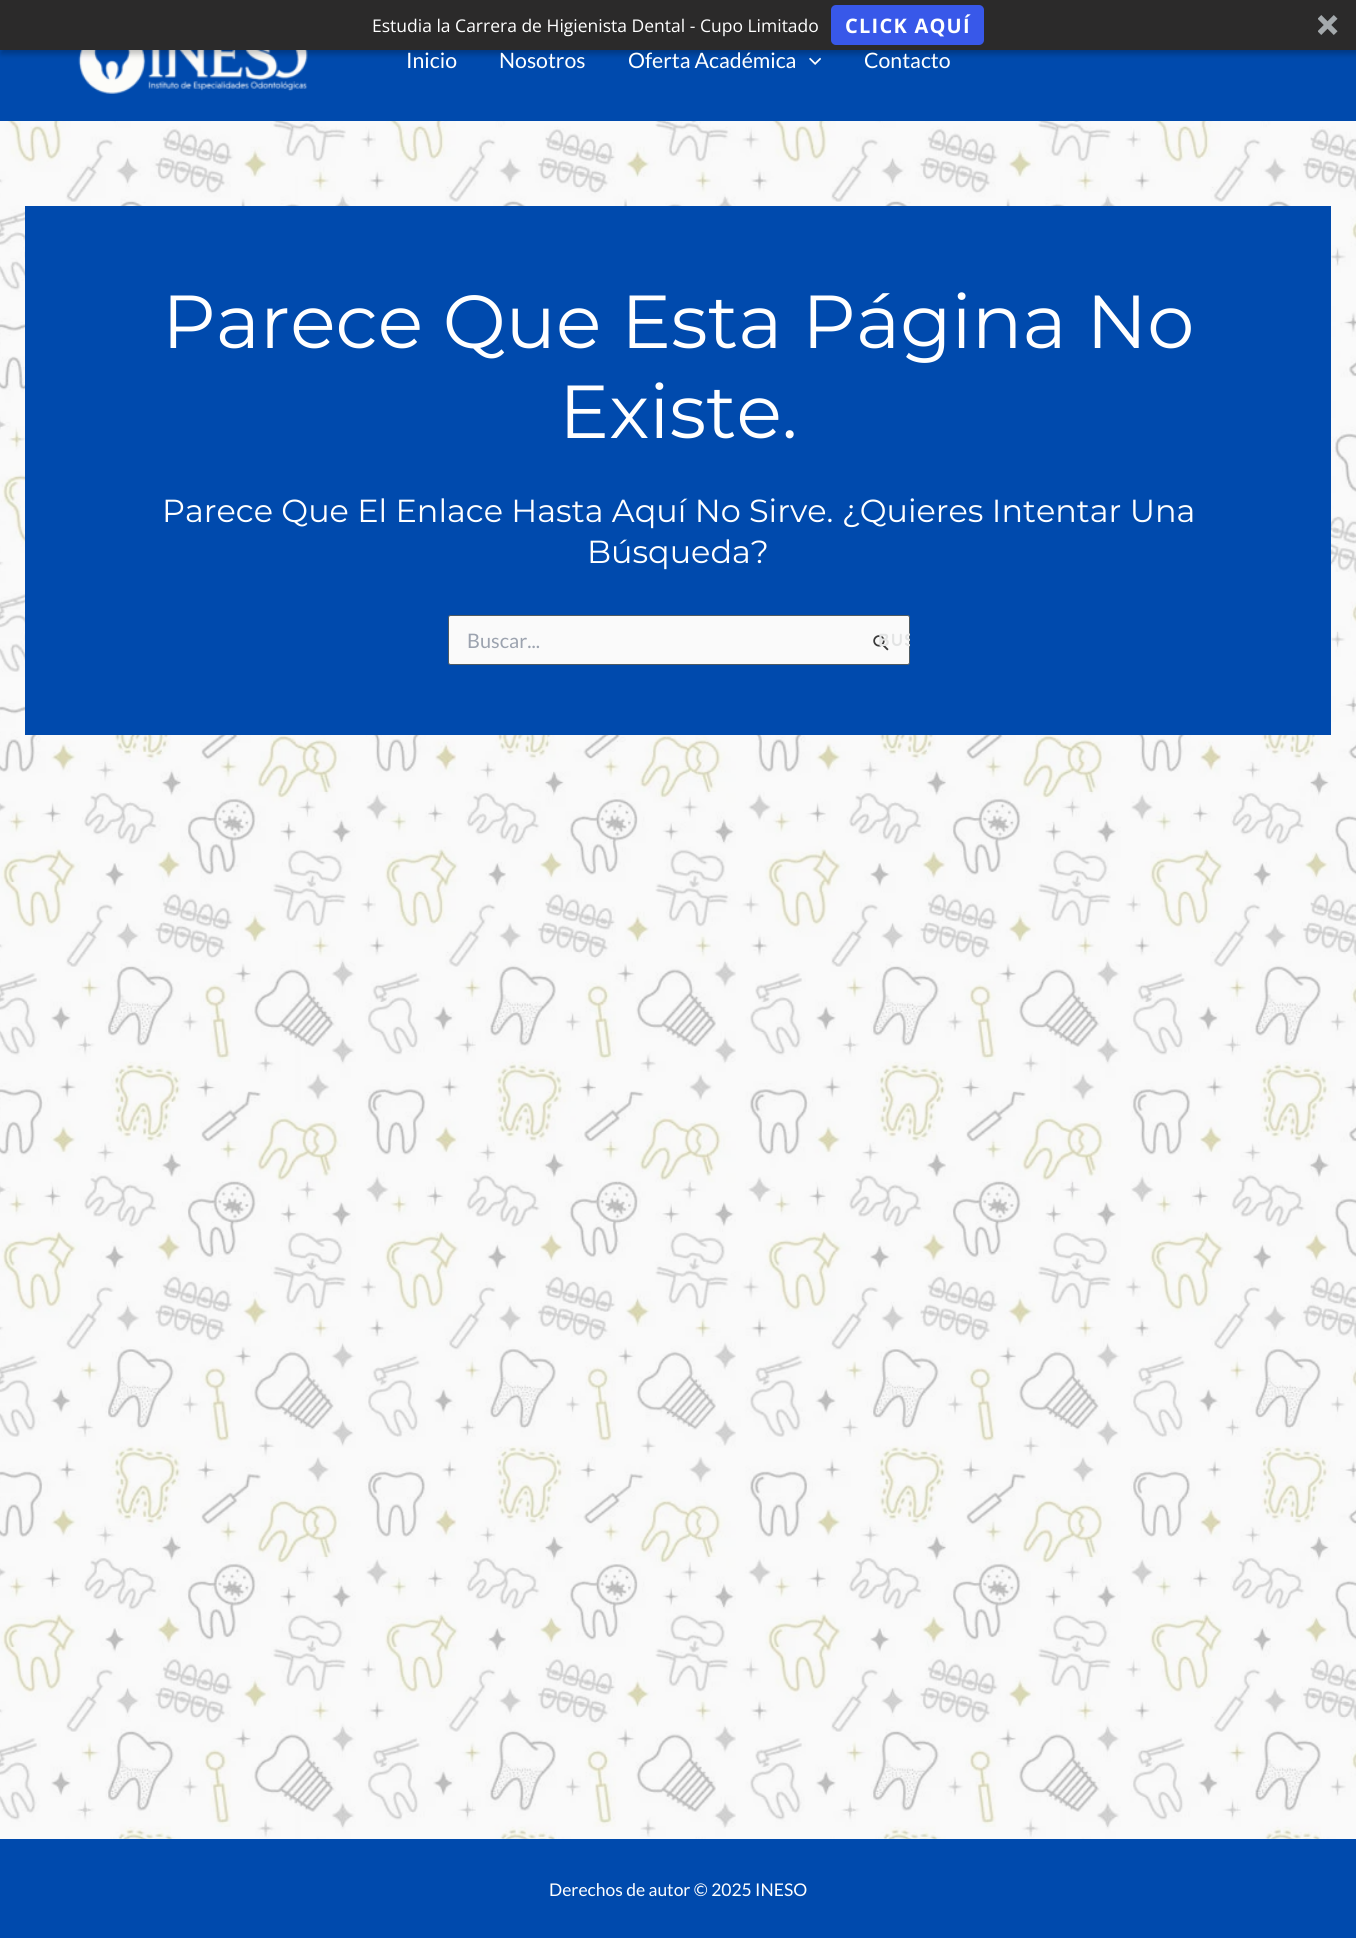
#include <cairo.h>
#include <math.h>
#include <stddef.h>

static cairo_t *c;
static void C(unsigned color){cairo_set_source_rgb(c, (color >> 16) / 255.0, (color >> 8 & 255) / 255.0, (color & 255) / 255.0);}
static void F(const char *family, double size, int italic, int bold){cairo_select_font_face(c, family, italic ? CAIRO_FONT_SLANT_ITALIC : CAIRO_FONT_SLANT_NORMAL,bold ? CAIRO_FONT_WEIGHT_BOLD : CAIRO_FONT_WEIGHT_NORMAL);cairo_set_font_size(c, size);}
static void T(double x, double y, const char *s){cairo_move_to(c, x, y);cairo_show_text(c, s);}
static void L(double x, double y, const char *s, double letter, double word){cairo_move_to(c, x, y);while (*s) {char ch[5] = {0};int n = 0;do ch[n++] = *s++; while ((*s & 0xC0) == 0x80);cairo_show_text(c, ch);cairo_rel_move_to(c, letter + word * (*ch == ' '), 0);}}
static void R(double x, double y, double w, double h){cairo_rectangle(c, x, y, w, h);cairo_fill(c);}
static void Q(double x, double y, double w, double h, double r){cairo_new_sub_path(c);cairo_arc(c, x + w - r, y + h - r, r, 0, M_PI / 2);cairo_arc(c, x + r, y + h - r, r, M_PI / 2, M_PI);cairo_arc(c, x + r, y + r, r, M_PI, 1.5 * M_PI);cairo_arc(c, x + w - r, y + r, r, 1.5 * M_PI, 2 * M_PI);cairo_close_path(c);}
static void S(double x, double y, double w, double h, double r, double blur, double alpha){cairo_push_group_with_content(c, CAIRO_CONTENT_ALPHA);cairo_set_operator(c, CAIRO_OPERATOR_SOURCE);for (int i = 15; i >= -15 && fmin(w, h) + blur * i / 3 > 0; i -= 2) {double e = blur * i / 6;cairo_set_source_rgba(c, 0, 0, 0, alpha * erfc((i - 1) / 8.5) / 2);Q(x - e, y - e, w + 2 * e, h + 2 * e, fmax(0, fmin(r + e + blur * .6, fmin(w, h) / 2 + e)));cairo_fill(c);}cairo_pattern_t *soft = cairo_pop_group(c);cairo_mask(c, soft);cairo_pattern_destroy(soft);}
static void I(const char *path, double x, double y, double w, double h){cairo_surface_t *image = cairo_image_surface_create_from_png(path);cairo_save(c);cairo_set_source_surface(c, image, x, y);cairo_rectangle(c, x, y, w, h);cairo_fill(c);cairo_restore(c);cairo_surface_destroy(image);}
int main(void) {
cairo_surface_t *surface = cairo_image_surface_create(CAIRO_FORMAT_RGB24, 1356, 1938);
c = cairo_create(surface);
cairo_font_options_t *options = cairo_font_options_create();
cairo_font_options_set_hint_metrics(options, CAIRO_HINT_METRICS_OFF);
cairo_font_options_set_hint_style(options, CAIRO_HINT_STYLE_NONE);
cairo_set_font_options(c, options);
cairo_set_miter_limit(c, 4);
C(0xf5f5f5);
cairo_paint(c);
I("1.png",0,121,1356,1718);
C(0x004aad);
R(0,50,1356,71);
I("3.png",78,50,230,44);
I("4.png",809,57,12,8);
C(0x000000);
S(1,4,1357,50,0,3,.25);
C(0x2b2a2a);
R(0,0,1356,50);
F("Open Sans",17.5,0,0);
C(0xffffff);
T(372,32,"Estudia la Carrera de Higienista Dental - Cupo Limitado");
C(0x3858e9);
Q(831,5,153,40,5);
cairo_fill(c);
F("Open Sans",20,0,1);
C(0xffffff);
L(845,33,"CLICK AQUÍ",1.25,0);
I("2.png",1318,15,20,20);
F("Lato",21.25,0,0);
T(406,68,"Inicio");
T(499,68,"Nosotros");
T(628,68,"Oferta Académica");
T(864,68,"Contacto");
C(0x004aad);
R(25,206,1306,529);
F("Montserrat",75,0,0);
C(0xffffff);
T(162,348,"Parece Que Esta Página No");
T(559,438,"Existe.");
F("Montserrat",31.9,0,0);
T(162,522,"Parece Que El Enlace Hasta Aquí No Sirve. ¿Quieres Intentar Una");
T(587,563,"Búsqueda?");
C(0xfafafa);
Q(448.5,615.5,461,49,2);
cairo_fill_preserve(c);
C(0x4f5b62);
cairo_set_line_width(c,1);
cairo_stroke(c);
F("Lato",20,0,0);
C(0x9ca3af);
T(467,648,"Buscar...");
I("5.png",873,635,16,16);
cairo_save(c);
Q(854,615,56,50,2.5);
cairo_clip(c);
F("Quicksand Light",17.5,0,0);
C(0xe3e4e4);
L(878,646,"BUS",1.25,0);
cairo_restore(c);
C(0x004aad);
R(0,1839,1356,99);
F("Lato",17.5,0,0);
C(0xffffff);
T(549,1896,"Derechos de autor © 2025 INESO");
cairo_surface_write_to_png(surface, "o.png");
cairo_font_options_destroy(options);
cairo_destroy(c);
cairo_surface_destroy(surface);
return 0;
}
